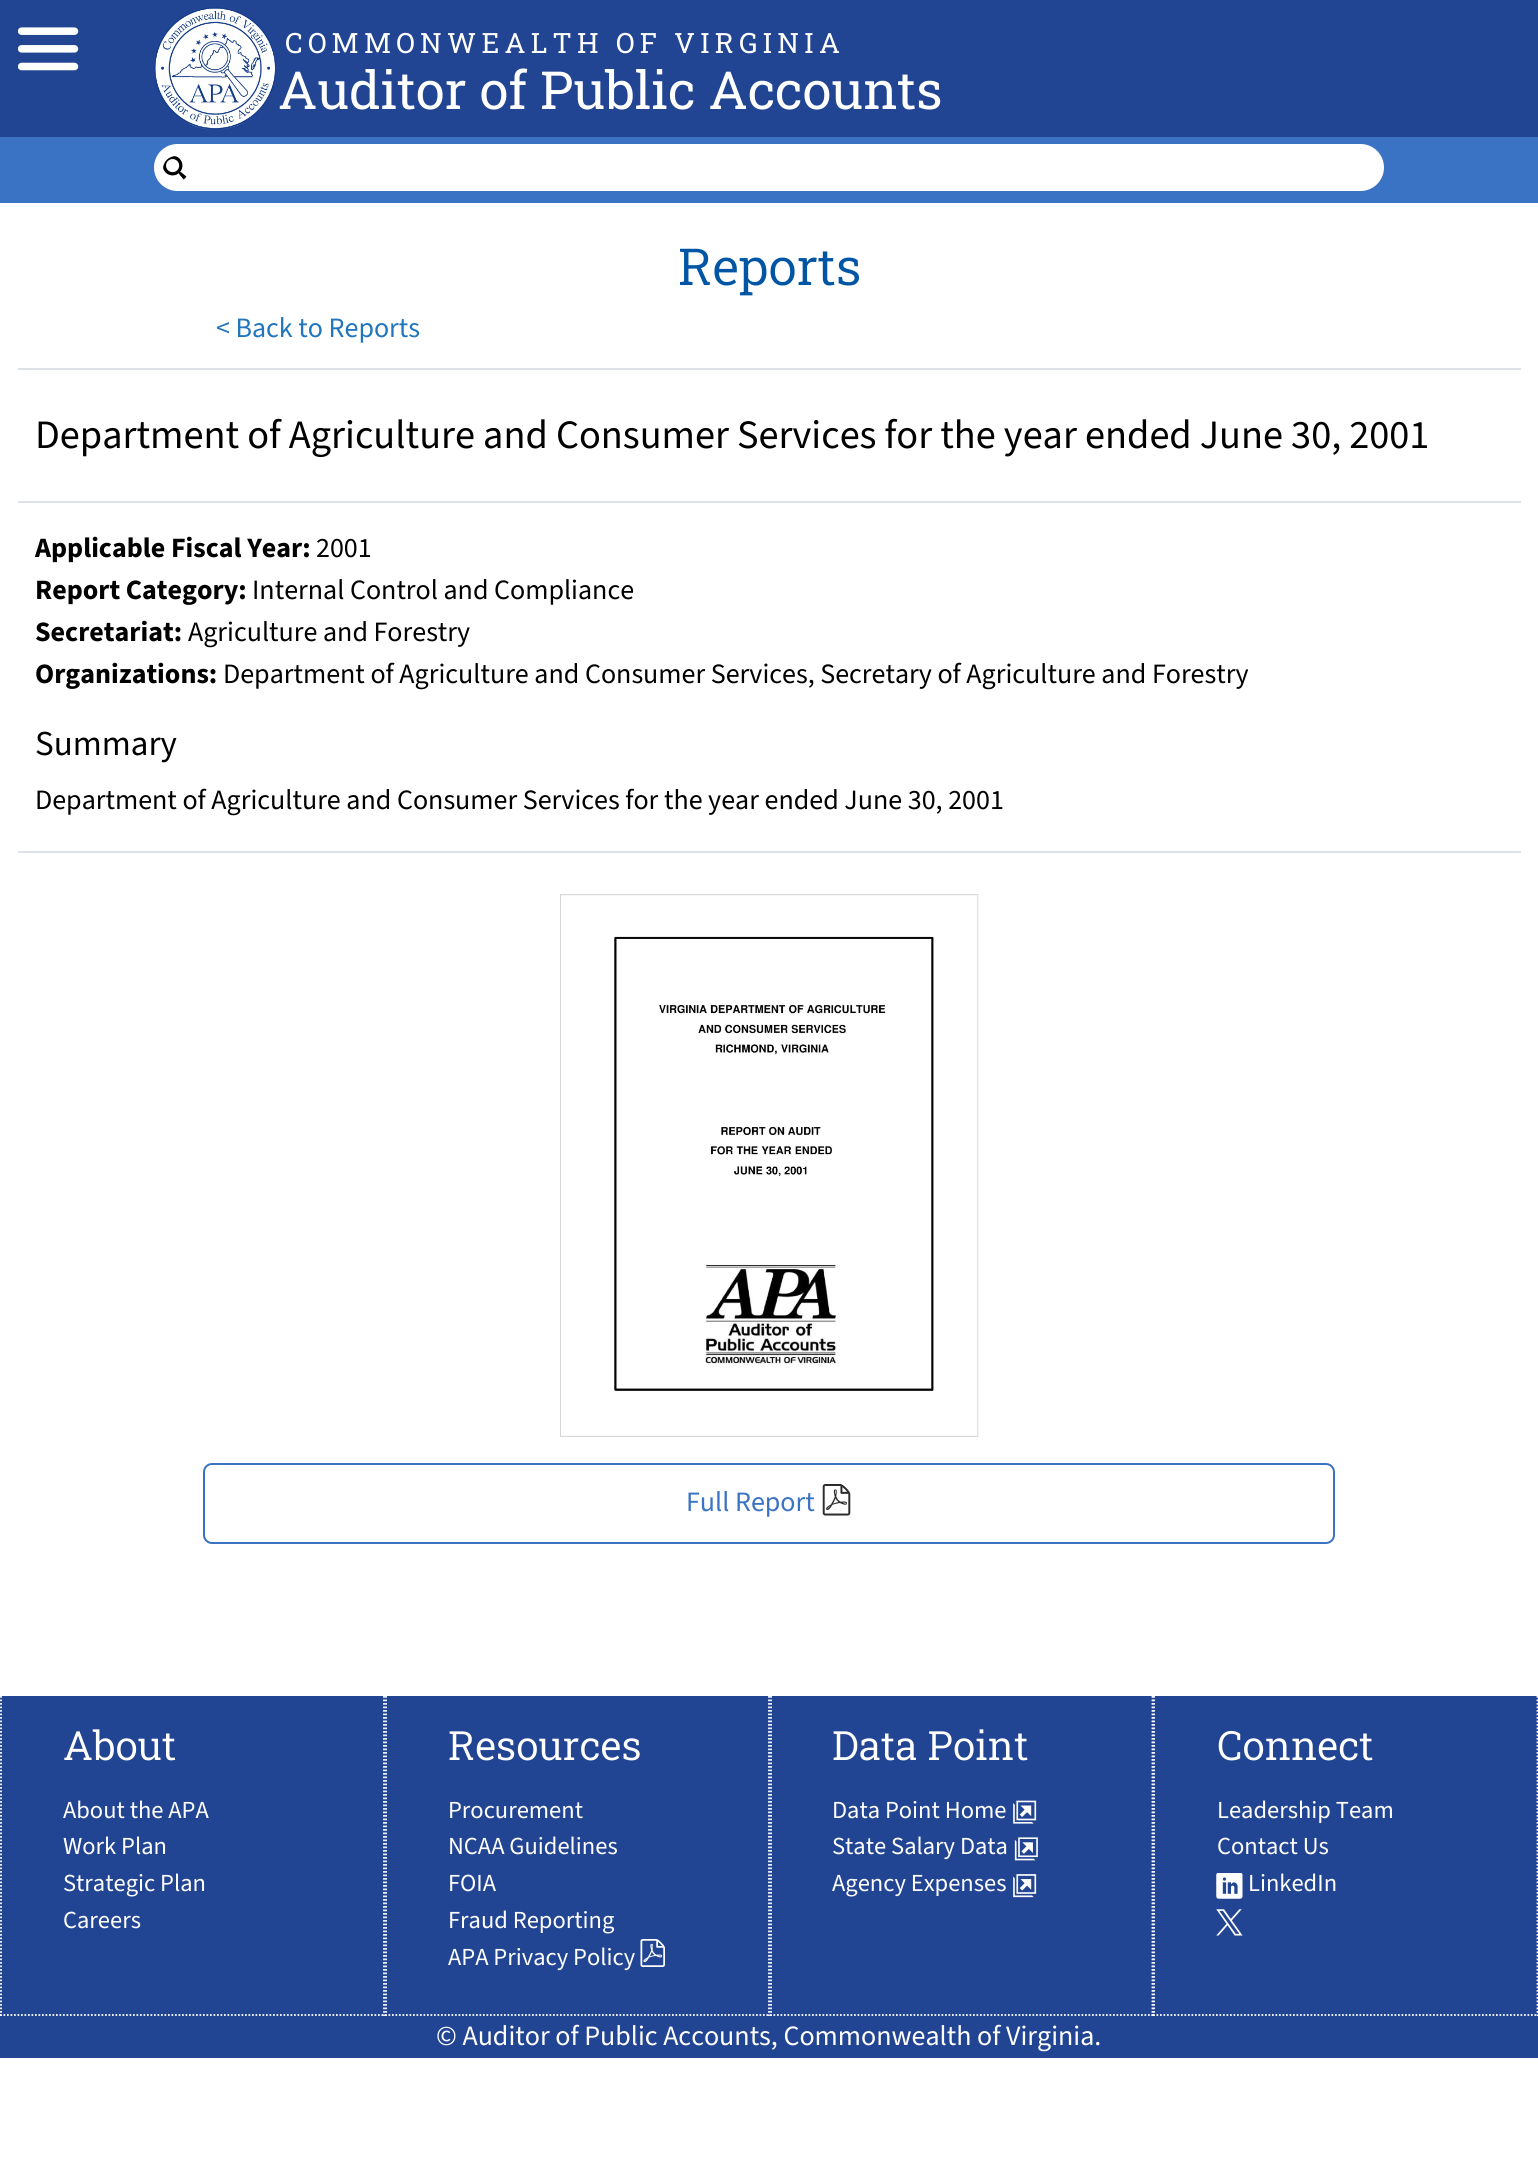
#include <cairo.h>
#include <math.h>
#include <stddef.h>

static cairo_t *c;
static void C(unsigned color){cairo_set_source_rgb(c, (color >> 16) / 255.0, (color >> 8 & 255) / 255.0, (color & 255) / 255.0);}
static void F(const char *family, double size, int italic, int bold){cairo_select_font_face(c, family, italic ? CAIRO_FONT_SLANT_ITALIC : CAIRO_FONT_SLANT_NORMAL,bold ? CAIRO_FONT_WEIGHT_BOLD : CAIRO_FONT_WEIGHT_NORMAL);cairo_set_font_size(c, size);}
static void T(double x, double y, const char *s){cairo_move_to(c, x, y);cairo_show_text(c, s);}
static void L(double x, double y, const char *s, double letter, double word){cairo_move_to(c, x, y);while (*s) {char ch[5] = {0};int n = 0;do ch[n++] = *s++; while ((*s & 0xC0) == 0x80);cairo_show_text(c, ch);cairo_rel_move_to(c, letter + word * (*ch == ' '), 0);}}
static void R(double x, double y, double w, double h){cairo_rectangle(c, x, y, w, h);cairo_fill(c);}
static void Q(double x, double y, double w, double h, double r){cairo_new_sub_path(c);cairo_arc(c, x + w - r, y + h - r, r, 0, M_PI / 2);cairo_arc(c, x + r, y + h - r, r, M_PI / 2, M_PI);cairo_arc(c, x + r, y + r, r, M_PI, 1.5 * M_PI);cairo_arc(c, x + w - r, y + r, r, 1.5 * M_PI, 2 * M_PI);cairo_close_path(c);}
static void I(const char *path, double x, double y, double w, double h){cairo_surface_t *image = cairo_image_surface_create_from_png(path);cairo_save(c);cairo_set_source_surface(c, image, x, y);cairo_rectangle(c, x, y, w, h);cairo_fill(c);cairo_restore(c);cairo_surface_destroy(image);}
int main(void) {
cairo_surface_t *surface = cairo_image_surface_create(CAIRO_FORMAT_RGB24, 1538, 2173);
c = cairo_create(surface);
cairo_font_options_t *options = cairo_font_options_create();
cairo_font_options_set_hint_metrics(options, CAIRO_HINT_METRICS_OFF);
cairo_font_options_set_hint_style(options, CAIRO_HINT_STYLE_NONE);
cairo_set_font_options(c, options);
cairo_set_miter_limit(c, 4);
C(0xffffff);
cairo_paint(c);
C(0x224593);
R(0,0,1538,137);
I("1.png",18,27,61,44);
I("2.png",154,7,123,123);
F("Roboto Slab",28,0,0);
C(0xffffff);
L(285,53,"COMMONWEALTH OF VIRGINIA",5.25,0);
F("Roboto Slab",52.5,0,0);
T(278,109,"Auditor of Public Accounts");
C(0x3b73c4);
R(0,137,1538,66);
C(0xffffff);
Q(154,144,1230,47,23.5);
cairo_fill(c);
I("3.png",163,156,24,24);
F("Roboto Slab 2",51,0,0);
C(0x0055a4);
T(678,285,"Reports");
F("Source Sans 3",28,0,0);
C(0x2075bc);
T(216,337,"< Back to Reports");
C(0xdee2e6);
R(18,368,1503,2);
F("Source Sans 3",40.3,0,0);
C(0x000000);
T(35,448,"Department of Agriculture and Consumer Services for the year ended June 30, 2001");
C(0xdee2e6);
R(18,501,1503,2);
F("Source Sans 3",28,0,1);
C(0x000000);
T(35,557,"Applicable Fiscal Year:");
F("Source Sans 3",28,0,0);
T(316,557,"2001");
F("Source Sans 3",28,0,1);
T(35,599,"Report Category:");
F("Source Sans 3",28,0,0);
T(252,599,"Internal Control and Compliance");
F("Source Sans 3",28,0,1);
T(35,641,"Secretariat:");
F("Source Sans 3",28,0,0);
T(188,641,"Agriculture and Forestry");
F("Source Sans 3",28,0,1);
T(35,683,"Organizations:");
F("Source Sans 3",28,0,0);
T(223,683,"Department of Agriculture and Consumer Services, Secretary of Agriculture and Forestry");
F("Source Sans 3",35,0,0);
T(35,755,"Summary");
F("Source Sans 3",28,0,0);
T(35,809,"Department of Agriculture and Consumer Services for the year ended June 30, 2001");
C(0xdee2e6);
R(18,851,1503,2);
I("4.png",560,894,419,543);
Q(204,1464,1130,79,8);
C(0x3b73c4);
cairo_stroke(c);
T(686,1511,"Full Report");
I("5.png",822,1484,29,32);
C(0x224593);
R(0,1696,1538,362);
cairo_new_path(c);
cairo_move_to(c,384,1696);
cairo_line_to(c,384,2016);
C(0xffffff);
cairo_set_line_width(c,1.8);
cairo_set_dash(c,(double[]){1.75,1.75},2,0);
cairo_stroke(c);
cairo_new_path(c);
cairo_move_to(c,0,2015);
cairo_line_to(c,385,2015);
cairo_stroke(c);
cairo_new_path(c);
cairo_move_to(c,1,1696);
cairo_line_to(c,1,2016);
cairo_stroke(c);
F("Roboto Slab 2",40.3,0,0);
T(63,1760,"About");
F("Source Sans 3",24.5,0,0);
T(63,1818,"About the APA");
T(63,1854,"Work Plan");
T(63,1891,"Strategic Plan");
T(63,1928,"Careers");
cairo_new_path(c);
cairo_move_to(c,769,1696);
cairo_line_to(c,769,2016);
cairo_stroke(c);
cairo_new_path(c);
cairo_move_to(c,385,2015);
cairo_line_to(c,770,2015);
cairo_stroke(c);
cairo_new_path(c);
cairo_move_to(c,386,1696);
cairo_line_to(c,386,2016);
cairo_stroke(c);
F("Roboto Slab 2",40.3,0,0);
T(448,1760,"Resources");
F("Source Sans 3",24.5,0,0);
T(448,1818,"Procurement");
T(448,1854,"NCAA Guidelines");
T(448,1891,"FOIA");
T(448,1928,"Fraud Reporting");
T(448,1965,"APA Privacy Policy");
I("6.png",640,1939,25,28);
cairo_new_path(c);
cairo_move_to(c,1152.5,1696);
cairo_line_to(c,1152.5,2016);
cairo_stroke(c);
cairo_new_path(c);
cairo_move_to(c,770,2015);
cairo_line_to(c,1153,2015);
cairo_stroke(c);
cairo_new_path(c);
cairo_move_to(c,771,1696);
cairo_line_to(c,771,2016);
cairo_stroke(c);
F("Roboto Slab 2",40.3,0,0);
T(832,1760,"Data Point");
F("Source Sans 3",24.5,0,0);
T(832,1818,"Data Point Home");
I("7.png",1013,1800,24,24);
T(832,1854,"State Salary Data");
I("8.png",1014,1837,24,24);
T(832,1891,"Agency Expenses");
I("9.png",1013,1874,24,24);
cairo_new_path(c);
cairo_move_to(c,1537.5,1696);
cairo_line_to(c,1537.5,2016);
cairo_stroke(c);
cairo_new_path(c);
cairo_move_to(c,1153,2015);
cairo_line_to(c,1538,2015);
cairo_stroke(c);
cairo_new_path(c);
cairo_move_to(c,1154,1696);
cairo_line_to(c,1154,2016);
cairo_stroke(c);
F("Roboto Slab 2",40.3,0,0);
T(1217,1760,"Connect");
F("Source Sans 3",24.5,0,0);
T(1217,1818,"Leadership Team");
T(1217,1854,"Contact Us");
I("10.png",1216,1873,27,26);
T(1248,1891,"LinkedIn");
I("11.png",1216,1909,27,27);
F("Source Sans 3",28,0,0);
T(436,2045,"© Auditor of Public Accounts, Commonwealth of Virginia.");
cairo_surface_write_to_png(surface, "o.png");
cairo_font_options_destroy(options);
cairo_destroy(c);
cairo_surface_destroy(surface);
return 0;
}
